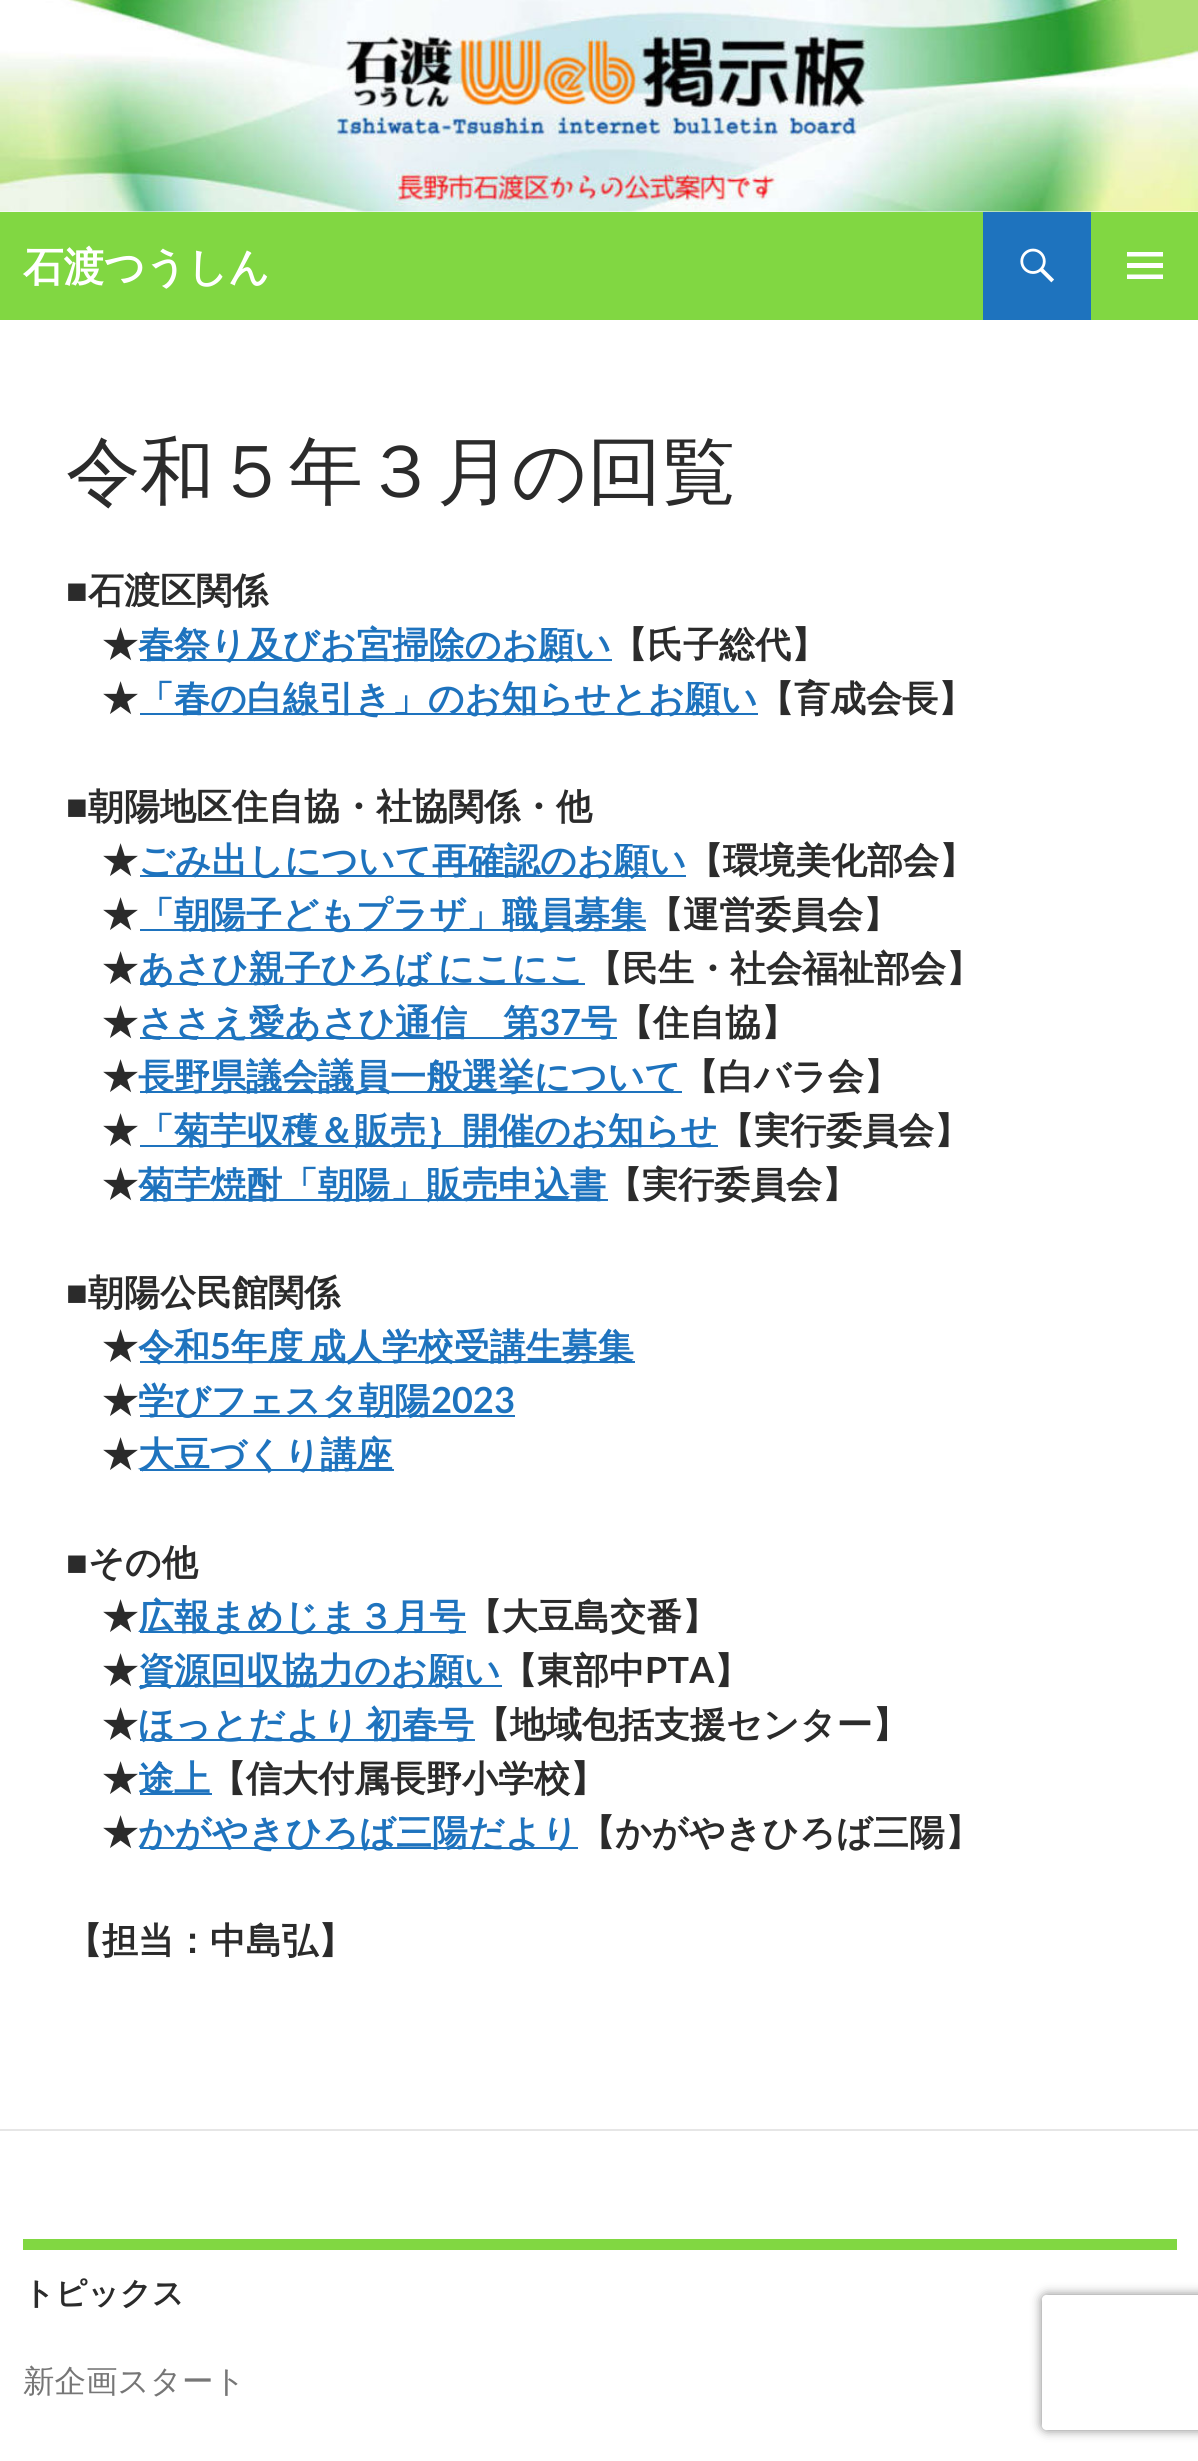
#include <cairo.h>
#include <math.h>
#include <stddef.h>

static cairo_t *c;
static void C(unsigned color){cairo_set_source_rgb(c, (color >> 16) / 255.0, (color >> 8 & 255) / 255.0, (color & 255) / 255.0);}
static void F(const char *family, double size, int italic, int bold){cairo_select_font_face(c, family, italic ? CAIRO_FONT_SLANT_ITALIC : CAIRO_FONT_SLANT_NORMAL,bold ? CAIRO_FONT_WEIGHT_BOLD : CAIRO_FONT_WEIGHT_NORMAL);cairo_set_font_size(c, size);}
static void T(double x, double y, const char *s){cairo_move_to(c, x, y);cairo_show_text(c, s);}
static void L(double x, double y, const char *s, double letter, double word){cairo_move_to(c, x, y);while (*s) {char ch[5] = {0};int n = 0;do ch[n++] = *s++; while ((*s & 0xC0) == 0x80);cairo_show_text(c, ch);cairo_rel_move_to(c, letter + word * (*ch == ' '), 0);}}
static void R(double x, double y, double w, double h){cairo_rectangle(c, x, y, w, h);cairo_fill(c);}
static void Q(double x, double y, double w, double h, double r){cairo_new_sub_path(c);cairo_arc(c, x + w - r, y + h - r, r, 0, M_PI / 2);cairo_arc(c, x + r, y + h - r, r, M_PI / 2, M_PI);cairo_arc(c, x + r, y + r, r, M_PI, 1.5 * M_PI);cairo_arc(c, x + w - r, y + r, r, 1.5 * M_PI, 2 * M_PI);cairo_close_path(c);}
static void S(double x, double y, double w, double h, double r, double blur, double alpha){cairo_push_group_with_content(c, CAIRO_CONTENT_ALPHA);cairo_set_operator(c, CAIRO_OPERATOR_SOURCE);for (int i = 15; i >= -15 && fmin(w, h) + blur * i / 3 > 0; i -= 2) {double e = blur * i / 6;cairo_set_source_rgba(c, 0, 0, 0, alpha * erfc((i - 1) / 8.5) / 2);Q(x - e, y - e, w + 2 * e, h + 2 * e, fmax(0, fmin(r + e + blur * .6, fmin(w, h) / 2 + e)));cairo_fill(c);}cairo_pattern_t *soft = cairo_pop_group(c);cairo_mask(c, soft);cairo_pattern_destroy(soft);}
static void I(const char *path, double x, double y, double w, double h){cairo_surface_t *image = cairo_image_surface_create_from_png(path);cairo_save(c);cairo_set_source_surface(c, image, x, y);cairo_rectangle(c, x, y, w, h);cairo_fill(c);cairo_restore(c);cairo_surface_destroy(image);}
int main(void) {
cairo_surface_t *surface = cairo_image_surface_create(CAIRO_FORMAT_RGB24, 1198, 2461);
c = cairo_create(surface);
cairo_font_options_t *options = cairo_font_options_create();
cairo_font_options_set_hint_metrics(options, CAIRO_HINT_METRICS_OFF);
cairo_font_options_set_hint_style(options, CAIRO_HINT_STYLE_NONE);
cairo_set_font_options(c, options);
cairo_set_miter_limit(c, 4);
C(0xffffff);
cairo_paint(c);
I("1.png",0,0,1198,212);
C(0x81d742);
R(0,212,1198,108);
F("WenQuanYi Zen Hei",40.5,0,1);
C(0xffffff);
T(23,281,"石渡つうしん");
C(0x1e73be);
R(983,212,108,108);
I("2.png",1020,248,34,35);
C(0xffffff);
cairo_new_path(c);
cairo_move_to(c,1127,279);
cairo_line_to(c,1127,274.5);
cairo_line_to(c,1163,274.5);
cairo_line_to(c,1163,279);
cairo_close_path(c);
cairo_move_to(c,1127,268);
cairo_line_to(c,1127,263);
cairo_line_to(c,1163,263);
cairo_line_to(c,1163,268);
cairo_close_path(c);
cairo_move_to(c,1127,256.5);
cairo_line_to(c,1127,252);
cairo_line_to(c,1163,252);
cairo_line_to(c,1163,256.5);
cairo_close_path(c);
cairo_fill(c);
F("WenQuanYi Zen Hei Medium",74.25,0,0);
C(0x2b2b2b);
T(66,497,"令和５年３月の回覧");
F("Liberation Sans",36,0,1);
T(66,603,"■");
F("WenQuanYi Zen Hei",36,0,1);
T(88,603,"石渡区関係");
T(102,657,"★");
C(0x1e73be);
R(140,659,472,2);
T(138,657,"春祭り及びお宮掃除のお願い");
C(0x2b2b2b);
T(611,657,"【氏子総代】");
T(102,711,"★");
C(0x1e73be);
R(140,713,618,2);
T(138,711,"「春の白線引き」のお知らせとお願い");
C(0x2b2b2b);
T(758,711,"【育成会長】");
F("Liberation Sans",36,0,1);
T(66,819,"■");
F("WenQuanYi Zen Hei",36,0,1);
T(88,819,"朝陽地区住自協・社協関係・他");
T(102,873,"★");
C(0x1e73be);
R(140,875,546,2);
T(138,873,"ごみ出しについて再確認のお願い");
C(0x2b2b2b);
T(687,873,"【環境美化部会】");
T(102,927,"★");
C(0x1e73be);
R(140,929,506,2);
T(138,927,"「朝陽子どもプラザ」職員募集");
C(0x2b2b2b);
T(647,927,"【運営委員会】");
T(102,981,"★");
C(0x1e73be);
R(140,983,445,2);
L(138,981,"あさひ親子ひろば にこにこ",0,-4);
C(0x2b2b2b);
T(586,981,"【民生・社会福祉部会】");
T(102,1035,"★");
C(0x1e73be);
R(140,1037,477,2);
T(138,1035,"ささえ愛あさひ通信　第");
F("Lato",36,0,1);
T(539,1035,"37");
F("WenQuanYi Zen Hei",36,0,1);
T(581,1035,"号");
C(0x2b2b2b);
T(617,1035,"【住自協】");
T(102,1089,"★");
C(0x1e73be);
R(140,1091,542,2);
T(138,1089,"長野県議会議員一般選挙について");
C(0x2b2b2b);
T(682,1089,"【白バラ会】");
T(102,1143,"★");
C(0x1e73be);
R(140,1145,578,2);
T(138,1143,"「菊芋収穫＆販売｝開催のお知らせ");
C(0x2b2b2b);
T(718,1143,"【実行委員会】");
T(102,1197,"★");
C(0x1e73be);
R(140,1199,468,2);
T(138,1197,"菊芋焼酎「朝陽」販売申込書");
C(0x2b2b2b);
T(606,1197,"【実行委員会】");
F("Liberation Sans",36,0,1);
T(66,1305,"■");
F("WenQuanYi Zen Hei",36,0,1);
T(88,1305,"朝陽公民館関係");
T(102,1359,"★");
C(0x1e73be);
R(140,1361,495,2);
T(138,1359,"令和");
F("Lato",36,0,1);
T(210,1359,"5");
F("WenQuanYi Zen Hei",36,0,1);
L(231,1359,"年度 成人学校受講生募集",0,-4);
C(0x2b2b2b);
T(102,1413,"★");
C(0x1e73be);
R(140,1415,375,2);
T(138,1413,"学びフェスタ朝陽");
F("Lato",36,0,1);
T(431,1413,"2023");
F("WenQuanYi Zen Hei",36,0,1);
C(0x2b2b2b);
T(102,1467,"★");
C(0x1e73be);
R(140,1469,254,2);
T(138,1467,"大豆づくり講座");
F("Liberation Sans",36,0,1);
C(0x2b2b2b);
T(66,1575,"■");
F("WenQuanYi Zen Hei",36,0,1);
T(88,1575,"その他");
T(102,1629,"★");
C(0x1e73be);
R(140,1631,326,2);
T(138,1629,"広報まめじま３月号");
C(0x2b2b2b);
T(466,1629,"【大豆島交番】");
T(102,1683,"★");
C(0x1e73be);
R(140,1685,362,2);
T(138,1683,"資源回収協力のお願い");
C(0x2b2b2b);
T(501,1683,"【東部中");
F("Lato",36,0,1);
T(645,1683,"PTA");
F("WenQuanYi Zen Hei",36,0,1);
T(714,1683,"】");
T(102,1737,"★");
C(0x1e73be);
R(140,1739,335,2);
L(138,1737,"ほっとだより 初春号",0,-4);
C(0x2b2b2b);
T(474,1737,"【地域包括支援センター】");
T(102,1791,"★");
C(0x1e73be);
R(140,1793,72,2);
T(138,1791,"途上");
C(0x2b2b2b);
T(210,1791,"【信大付属長野小学校】");
T(102,1845,"★");
C(0x1e73be);
R(140,1847,438,2);
T(138,1845,"かがやきひろば三陽だより");
C(0x2b2b2b);
T(579,1845,"【かがやきひろば三陽】");
T(66,1953,"【担当：中島弘】");
C(0xe6e6e6);
R(0,2129,1198,2);
C(0x81d742);
R(23,2239,1154,11);
F("WenQuanYi Zen Hei",31.5,0,1);
C(0x2b2b2b);
T(23,2304,"トピックス");
F("WenQuanYi Zen Hei Medium",31.5,0,0);
C(0x767676);
T(23,2392,"新企画スタート");
cairo_save(c);
cairo_set_fill_rule(c,CAIRO_FILL_RULE_EVEN_ODD);
cairo_new_path(c);
cairo_move_to(c,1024,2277);
cairo_line_to(c,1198,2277);
cairo_line_to(c,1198,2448);
cairo_line_to(c,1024,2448);
cairo_close_path(c);
cairo_move_to(c,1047,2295);
cairo_line_to(c,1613,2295);
cairo_curve_to(c,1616,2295,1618,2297,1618,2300);
cairo_line_to(c,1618,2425);
cairo_curve_to(c,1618,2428,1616,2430,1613,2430);
cairo_line_to(c,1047,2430);
cairo_curve_to(c,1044,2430,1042,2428,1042,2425);
cairo_line_to(c,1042,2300);
cairo_curve_to(c,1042,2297,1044,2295,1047,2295);
cairo_close_path(c);
cairo_clip(c);
C(0x808080);
S(1042,2295,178,135,5,5.5,1);
cairo_restore(c);
cairo_surface_write_to_png(surface, "o.png");
cairo_font_options_destroy(options);
cairo_destroy(c);
cairo_surface_destroy(surface);
return 0;
}
